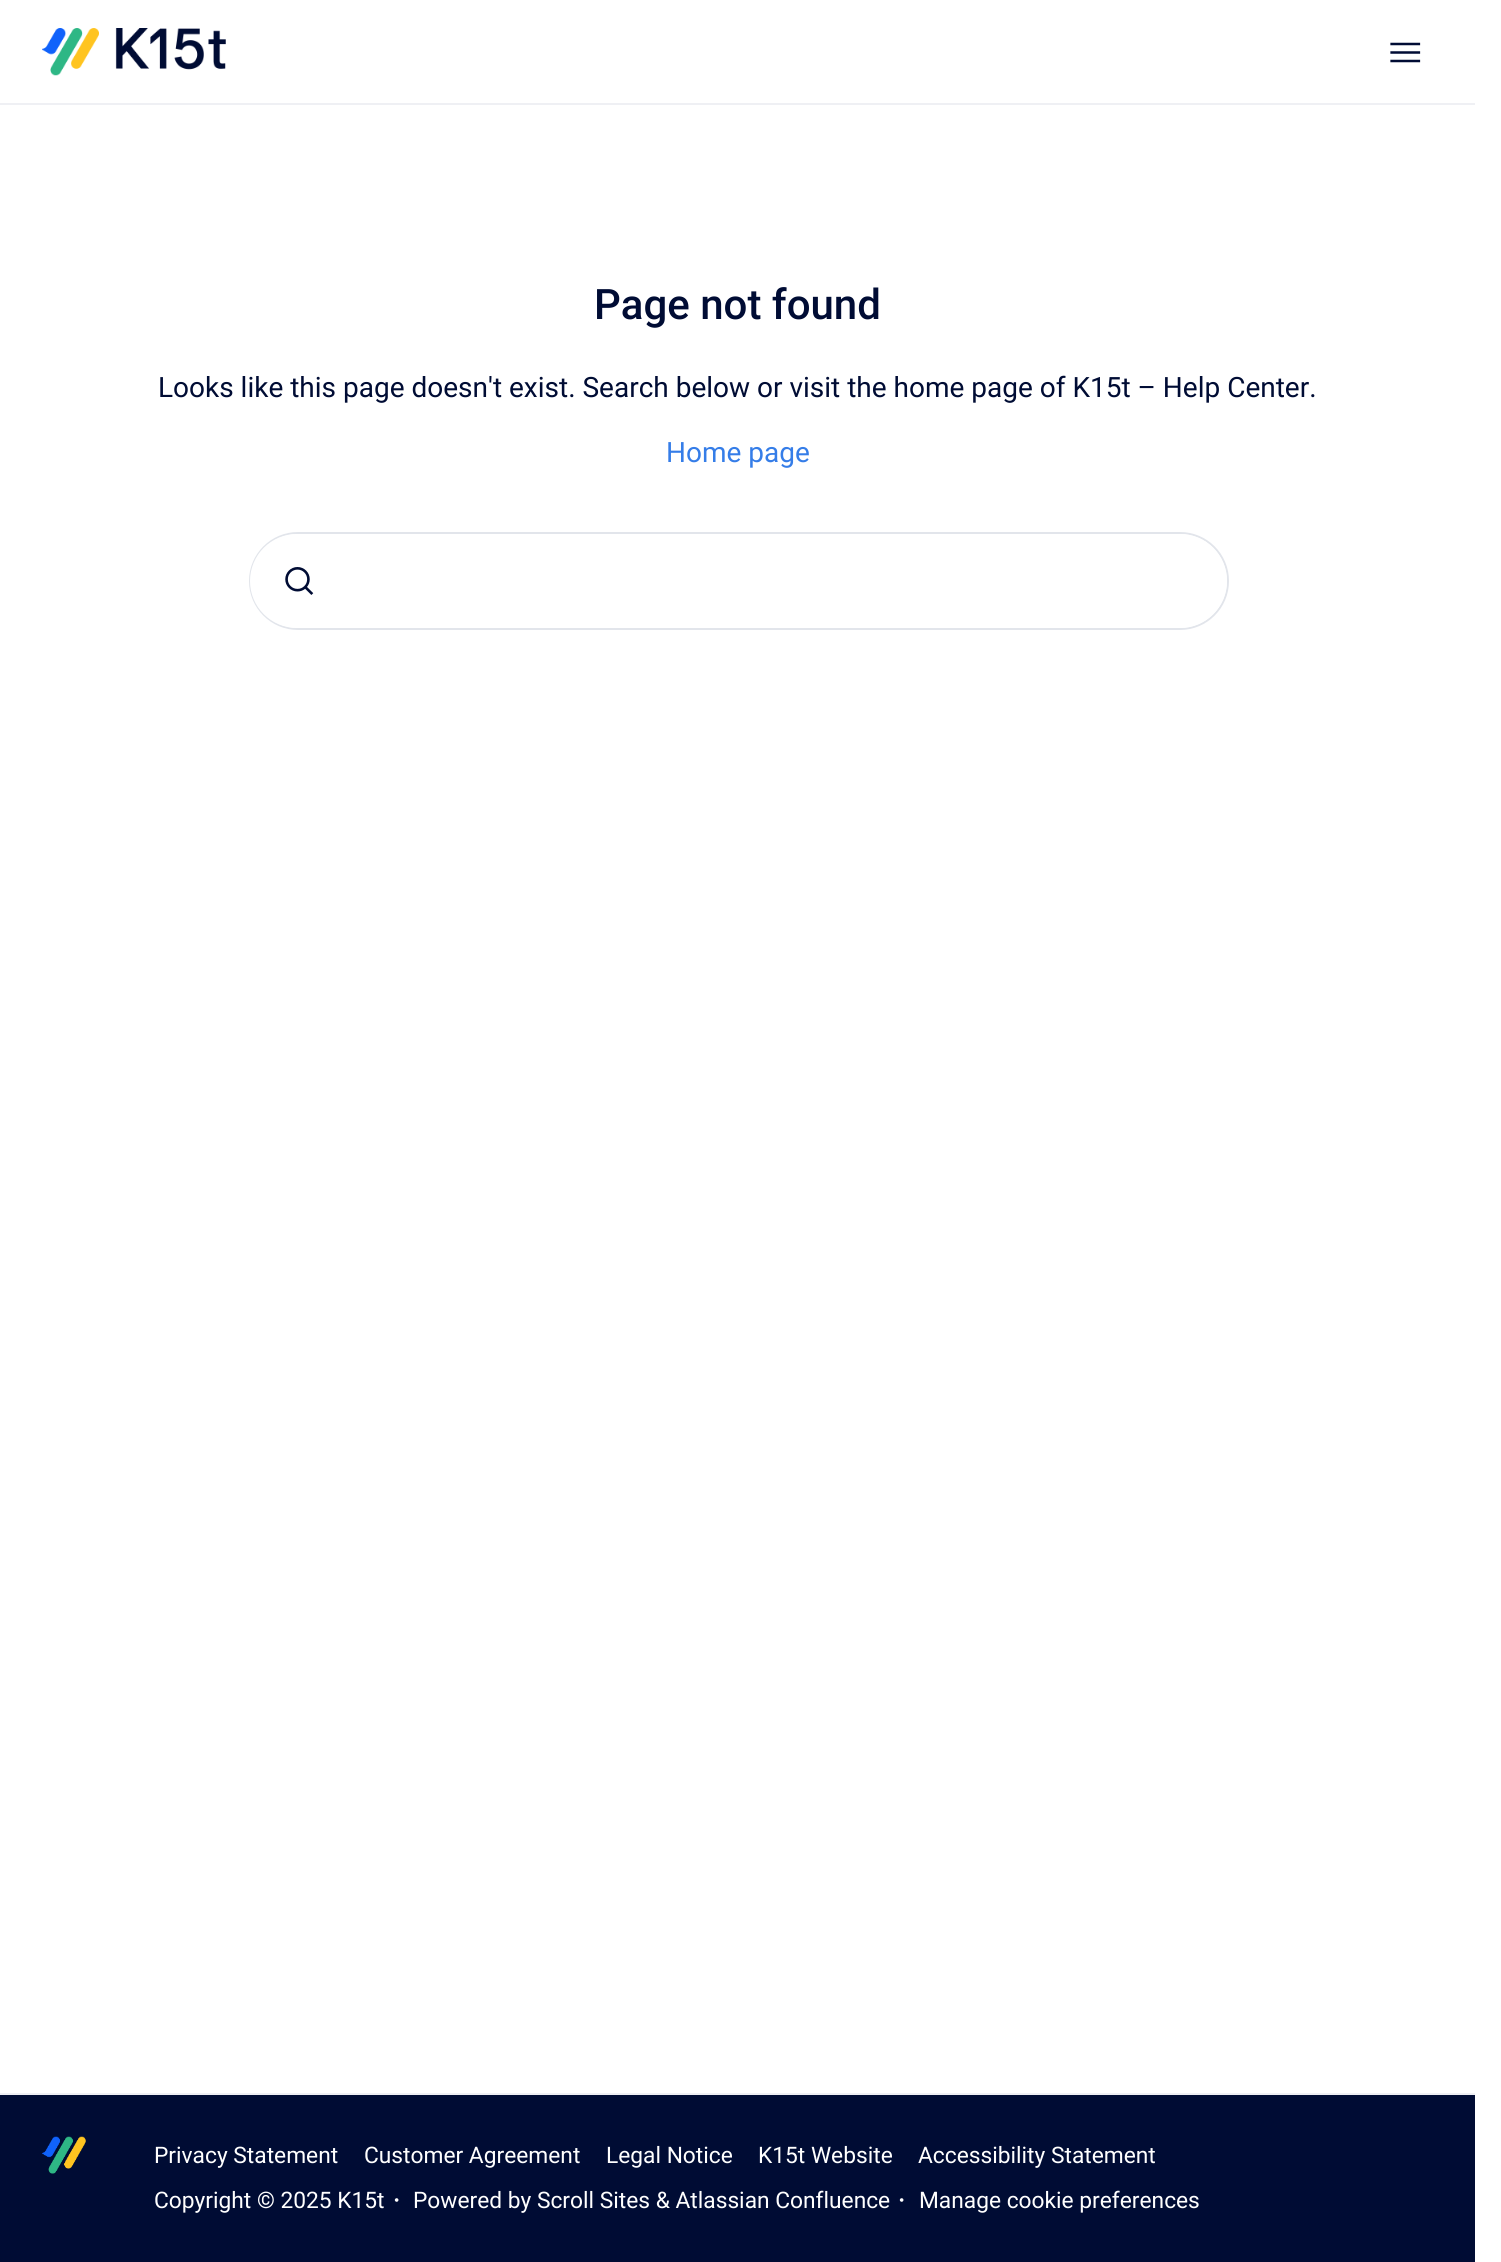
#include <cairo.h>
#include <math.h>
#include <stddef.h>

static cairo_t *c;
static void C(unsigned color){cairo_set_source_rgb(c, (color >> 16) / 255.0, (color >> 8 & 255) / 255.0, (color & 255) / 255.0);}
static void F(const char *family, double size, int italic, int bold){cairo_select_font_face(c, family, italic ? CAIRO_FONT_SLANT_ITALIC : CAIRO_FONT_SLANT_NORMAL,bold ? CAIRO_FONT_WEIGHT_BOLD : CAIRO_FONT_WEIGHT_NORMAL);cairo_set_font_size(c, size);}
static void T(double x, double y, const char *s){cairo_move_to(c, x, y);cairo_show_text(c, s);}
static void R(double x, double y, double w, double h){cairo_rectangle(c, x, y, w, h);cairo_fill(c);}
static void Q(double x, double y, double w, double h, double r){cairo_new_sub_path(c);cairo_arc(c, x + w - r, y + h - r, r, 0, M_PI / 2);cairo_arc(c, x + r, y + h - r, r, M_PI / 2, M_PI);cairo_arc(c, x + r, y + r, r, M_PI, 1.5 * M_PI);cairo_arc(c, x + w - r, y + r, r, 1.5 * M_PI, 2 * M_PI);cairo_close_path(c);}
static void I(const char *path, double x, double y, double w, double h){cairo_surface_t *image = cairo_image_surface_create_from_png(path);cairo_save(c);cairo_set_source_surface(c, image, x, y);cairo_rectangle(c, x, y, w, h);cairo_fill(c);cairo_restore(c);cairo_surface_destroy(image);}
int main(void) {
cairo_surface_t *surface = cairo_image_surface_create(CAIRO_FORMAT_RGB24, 1501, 2262);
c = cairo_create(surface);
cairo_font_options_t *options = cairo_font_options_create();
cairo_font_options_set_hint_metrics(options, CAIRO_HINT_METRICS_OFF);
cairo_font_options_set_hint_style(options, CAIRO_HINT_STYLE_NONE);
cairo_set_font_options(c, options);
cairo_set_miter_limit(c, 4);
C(0xffffff);
cairo_paint(c);
C(0xeff0f4);
R(0,103,1475,2);
I("1.png",42,28,184,48);
I("2.png",1390,42,31,21);
F("Roboto Medium",42,0,0);
C(0x000c34);
T(594,319,"Page not found");
F("Roboto",28,0,0);
T(158,397,"Looks like this page doesn't exist. Search below or visit the home page of K15t – Help Center.");
C(0x357de8);
T(666,462,"Home page");
Q(250,533,978,96,48);
C(0xe2e5eb);
cairo_stroke(c);
C(0xffffff);
Q(250,534,977,94,47);
cairo_fill(c);
I("3.png",285,567,29,28);
C(0x000c34);
R(0,2095,1475,167);
C(0xeff0f4);
R(0,2093,1475,2);
I("4.png",42,2136,44,38);
F("Roboto",22.75,0,0);
C(0xffffff);
T(154,2163,"Privacy Statement");
T(364,2163,"Customer Agreement");
T(606,2163,"Legal Notice");
T(758,2163,"K15t Website");
T(918,2163,"Accessibility Statement");
T(154,2208,"Copyright © 2025 K15t");
F("WenQuanYi Zen Hei Medium",22.75,0,0);
T(385,2208,"・");
F("Roboto",22.75,0,0);
T(413,2208,"Powered by Scroll Sites & Atlassian Confluence");
F("WenQuanYi Zen Hei Medium",22.75,0,0);
T(890,2208,"・");
F("Roboto",22.75,0,0);
T(919,2208,"Manage cookie preferences");
cairo_surface_write_to_png(surface, "o.png");
cairo_font_options_destroy(options);
cairo_destroy(c);
cairo_surface_destroy(surface);
return 0;
}
